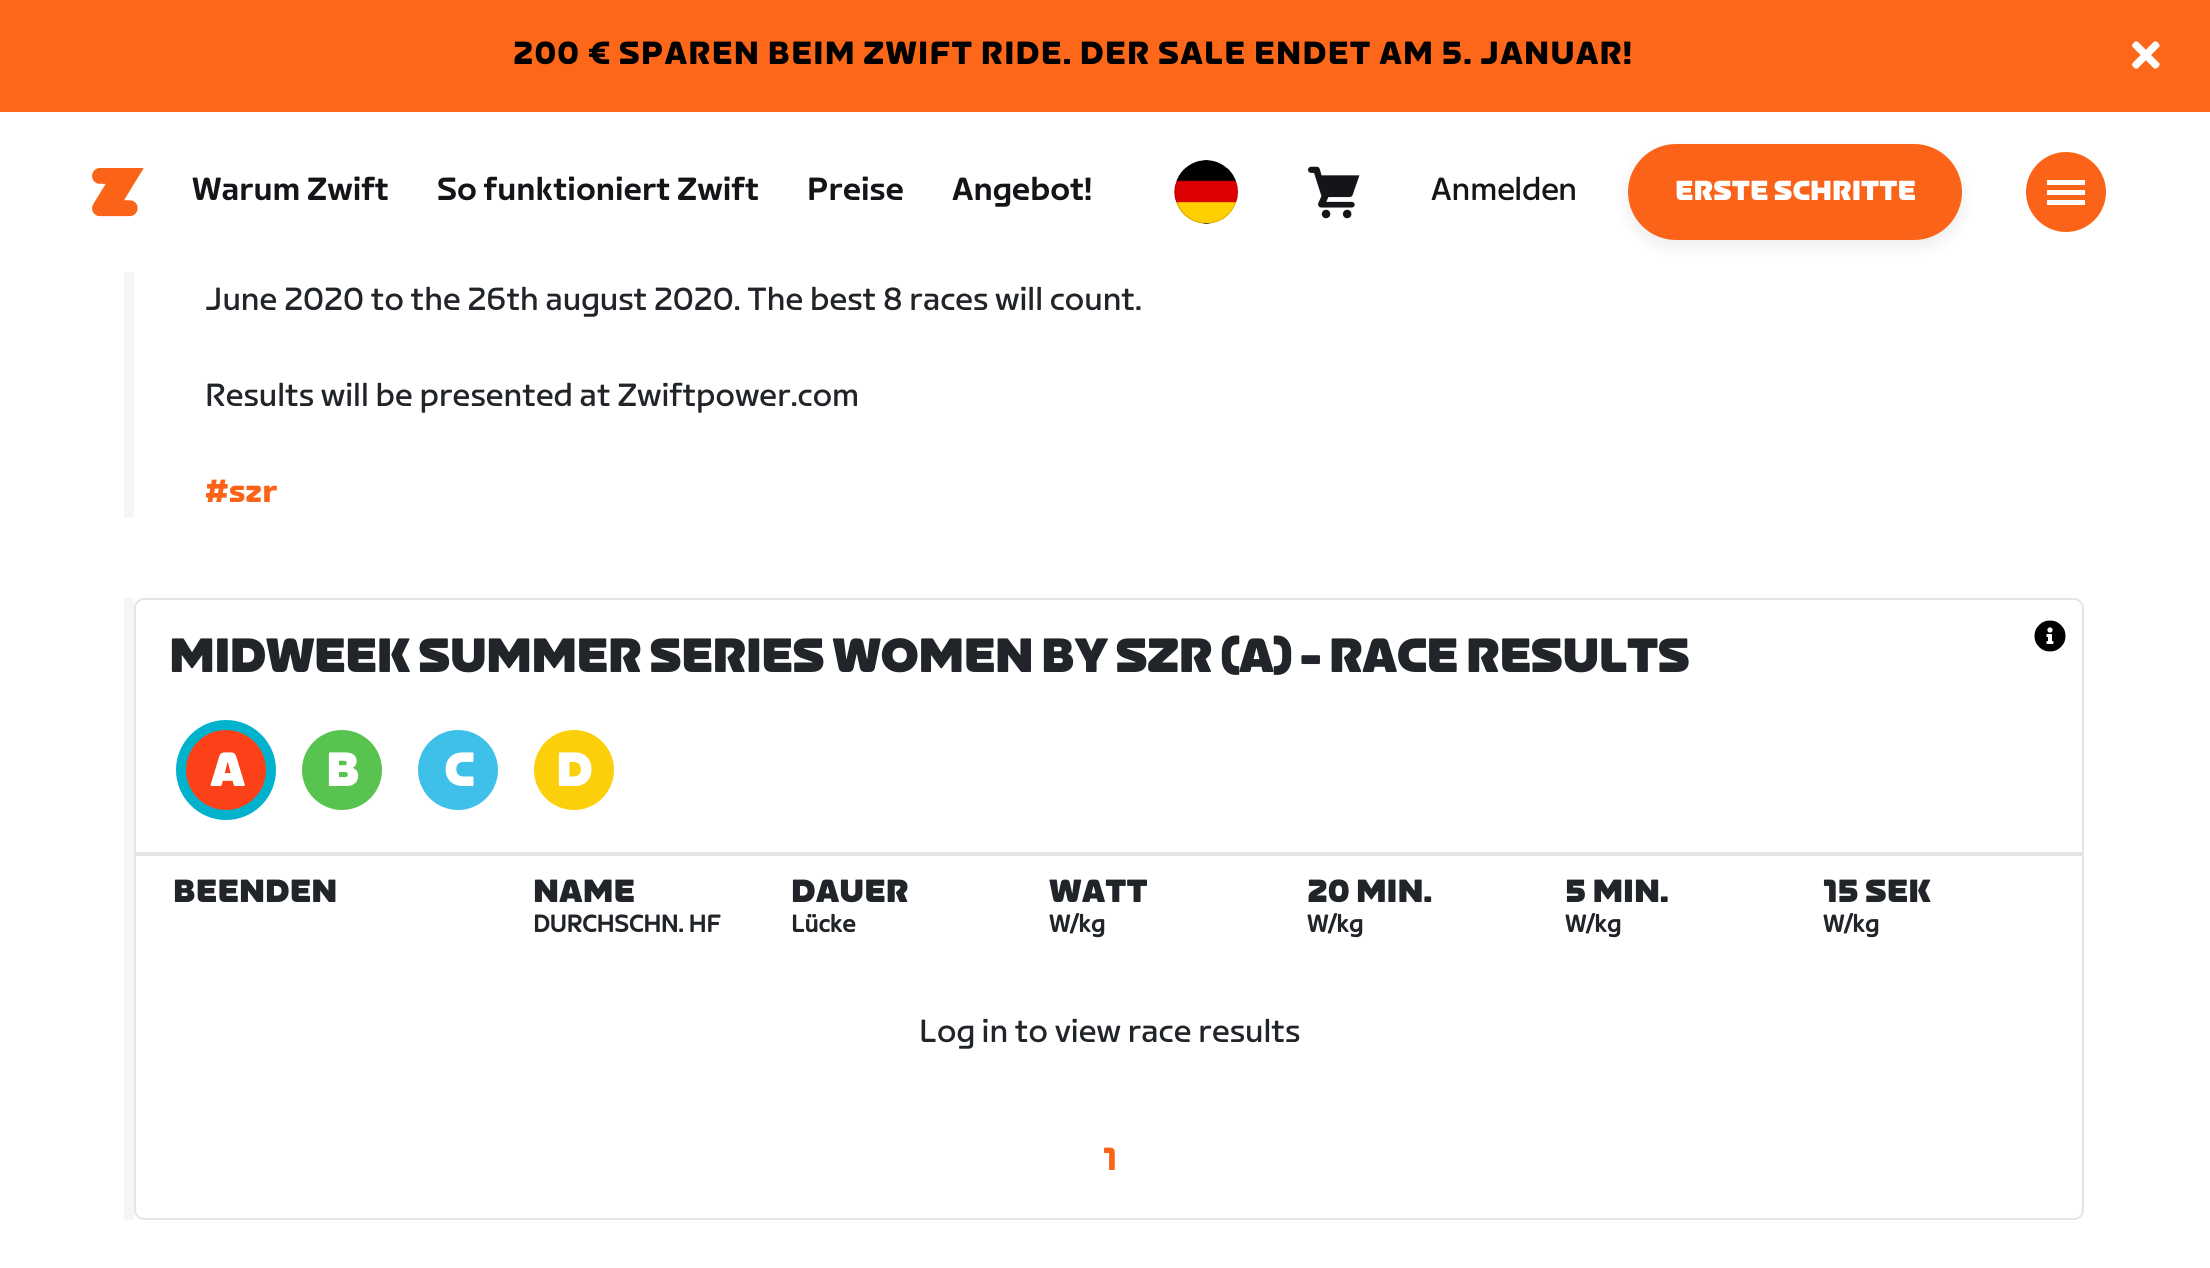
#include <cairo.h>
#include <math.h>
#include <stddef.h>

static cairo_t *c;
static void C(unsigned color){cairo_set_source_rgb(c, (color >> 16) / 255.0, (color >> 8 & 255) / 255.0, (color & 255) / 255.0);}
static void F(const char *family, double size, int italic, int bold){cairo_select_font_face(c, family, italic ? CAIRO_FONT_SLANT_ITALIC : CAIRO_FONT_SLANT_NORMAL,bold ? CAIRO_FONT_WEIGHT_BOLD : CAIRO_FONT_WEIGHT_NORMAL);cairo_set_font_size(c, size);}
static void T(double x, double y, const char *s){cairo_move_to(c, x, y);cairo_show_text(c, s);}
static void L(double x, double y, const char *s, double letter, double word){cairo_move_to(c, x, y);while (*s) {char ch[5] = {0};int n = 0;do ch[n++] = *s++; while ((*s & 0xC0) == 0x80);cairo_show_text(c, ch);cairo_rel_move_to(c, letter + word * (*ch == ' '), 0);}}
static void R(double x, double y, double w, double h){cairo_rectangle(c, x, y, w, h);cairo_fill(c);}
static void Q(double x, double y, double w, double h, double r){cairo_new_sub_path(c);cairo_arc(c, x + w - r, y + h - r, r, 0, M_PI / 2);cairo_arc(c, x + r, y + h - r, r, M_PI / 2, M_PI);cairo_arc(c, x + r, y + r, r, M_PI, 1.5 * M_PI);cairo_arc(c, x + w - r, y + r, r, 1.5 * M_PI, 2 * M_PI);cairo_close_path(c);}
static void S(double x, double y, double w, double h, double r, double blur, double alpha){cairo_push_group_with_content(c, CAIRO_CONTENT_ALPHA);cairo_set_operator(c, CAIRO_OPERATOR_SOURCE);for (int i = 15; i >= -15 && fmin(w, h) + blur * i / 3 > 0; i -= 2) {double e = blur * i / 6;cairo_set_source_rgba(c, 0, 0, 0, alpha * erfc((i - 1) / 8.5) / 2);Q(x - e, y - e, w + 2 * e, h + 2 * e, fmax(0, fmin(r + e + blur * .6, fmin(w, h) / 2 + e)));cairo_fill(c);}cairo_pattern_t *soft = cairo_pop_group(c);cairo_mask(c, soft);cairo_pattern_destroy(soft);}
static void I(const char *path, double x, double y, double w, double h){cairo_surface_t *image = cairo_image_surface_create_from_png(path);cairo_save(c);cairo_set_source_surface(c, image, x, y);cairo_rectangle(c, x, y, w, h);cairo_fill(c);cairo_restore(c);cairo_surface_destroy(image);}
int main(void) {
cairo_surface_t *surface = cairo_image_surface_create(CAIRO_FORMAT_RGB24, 2210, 1268);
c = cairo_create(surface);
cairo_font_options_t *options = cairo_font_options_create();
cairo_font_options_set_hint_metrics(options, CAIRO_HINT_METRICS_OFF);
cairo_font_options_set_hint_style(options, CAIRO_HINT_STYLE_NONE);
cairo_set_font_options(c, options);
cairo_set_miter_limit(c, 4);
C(0xffffff);
cairo_paint(c);
C(0xfc6719);
R(0,0,2210,112);
F("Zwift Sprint",32,0,1);
C(0x000000);
L(513,64,"200 € SPAREN BEIM ZWIFT RIDE. DER SALE ENDET AM 5. JANUAR!",1.2,0);
I("1.png",2132,41,28,28);
I("2.png",92,168,52,49);
F("Zwift Sprint Medium",32,0,0);
C(0x141518);
T(192,200,"Warum Zwift");
T(437,200,"So funktioniert Zwift");
T(807,200,"Preise");
T(952,200,"Angebot!");
I("3.png",1174,160,64,64);
I("4.png",1308,166,52,53);
F("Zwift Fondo",32,0,0);
T(1431,200,"Anmelden");
C(0x000000);
S(1628,152,334,94,47,8,.08);
C(0xfb6418);
Q(1628,144,334,96,48);
cairo_fill(c);
F("Zwift Sprint Black",27.5,0,0);
C(0xffffff);
T(1675,200,"ERSTE SCHRITTE");
C(0xfb6418);
cairo_new_path(c);
cairo_move_to(c,2026,192);
cairo_curve_to(c,2026,170,2044,152,2066,152);
cairo_curve_to(c,2088,152,2106,170,2106,192);
cairo_curve_to(c,2106,214,2088,232,2066,232);
cairo_curve_to(c,2044,232,2026,214,2026,192);
cairo_close_path(c);
cairo_fill(c);
C(0xffffff);
R(2047,180,38,5);
R(2047,190,38,5);
R(2047,200,38,5);
C(0xf5f5f5);
R(124,272,10,246);
F("Zwift Sprint",32,0,0);
C(0x212529);
T(205,310,"June 2020 to the 26th august 2020. The best 8 races will count.");
T(205,406,"Results will be presented at Zwiftpower.com");
F("Zwift Sprint",32,0,1);
C(0xfb6418);
T(205,502,"#szr");
C(0xf5f5f5);
R(124,598,10,622);
Q(135,599,1948,620,9);
C(0xe3e6e7);
cairo_stroke(c);
F("Zwift Sprint Black",48,0,0);
C(0x212529);
L(169,672,"MIDWEEK SUMMER SERIES WOMEN BY SZR (A) - RACE RESULTS",-.95,0);
I("5.png",2034,620,32,32);
C(0x01b2cc);
cairo_arc(c,226,770,50,0,2 * M_PI);
cairo_fill(c);
C(0xfc4119);
cairo_arc(c,226,770,40,0,2 * M_PI);
cairo_fill(c);
I("6.png",210,752,35,34);
C(0x58c34e);
cairo_arc(c,342,770,40,0,2 * M_PI);
cairo_fill(c);
I("7.png",328,752,31,34);
C(0x3ec0e9);
cairo_arc(c,458,770,40,0,2 * M_PI);
cairo_fill(c);
I("8.png",445,752,29,34);
C(0xfccf0b);
cairo_arc(c,574,770,40,0,2 * M_PI);
cairo_fill(c);
I("9.png",558,752,34,34);
C(0xe3e6e7);
R(136,852,1946,4);
F("Zwift Sprint Black",32,0,0);
C(0x212529);
T(173,902,"BEENDEN");
T(533,902,"NAME");
F("Zwift Fondo",24,0,1);
T(533,932,"DURCHSCHN. HF");
F("Zwift Sprint Black",32,0,0);
T(791,902,"DAUER");
F("Zwift Fondo",24,0,1);
T(791,932,"Lücke");
F("Zwift Sprint Black",32,0,0);
T(1049,902,"WATT");
F("Zwift Fondo",24,0,1);
T(1049,932,"W/kg");
F("Zwift Sprint Black",32,0,0);
T(1307,902,"20 MIN.");
F("Zwift Fondo",24,0,1);
T(1307,932,"W/kg");
F("Zwift Sprint Black",32,0,0);
T(1565,902,"5 MIN.");
F("Zwift Fondo",24,0,1);
T(1565,932,"W/kg");
F("Zwift Sprint Black",32,0,0);
T(1823,902,"15 SEK");
F("Zwift Fondo",24,0,1);
T(1823,932,"W/kg");
F("Zwift Sprint",32,0,0);
T(919,1042,"Log in to view race results");
F("Zwift Sprint",32,0,1);
C(0xfb6418);
T(1103,1170,"1");
cairo_surface_write_to_png(surface, "o.png");
cairo_font_options_destroy(options);
cairo_destroy(c);
cairo_surface_destroy(surface);
return 0;
}
